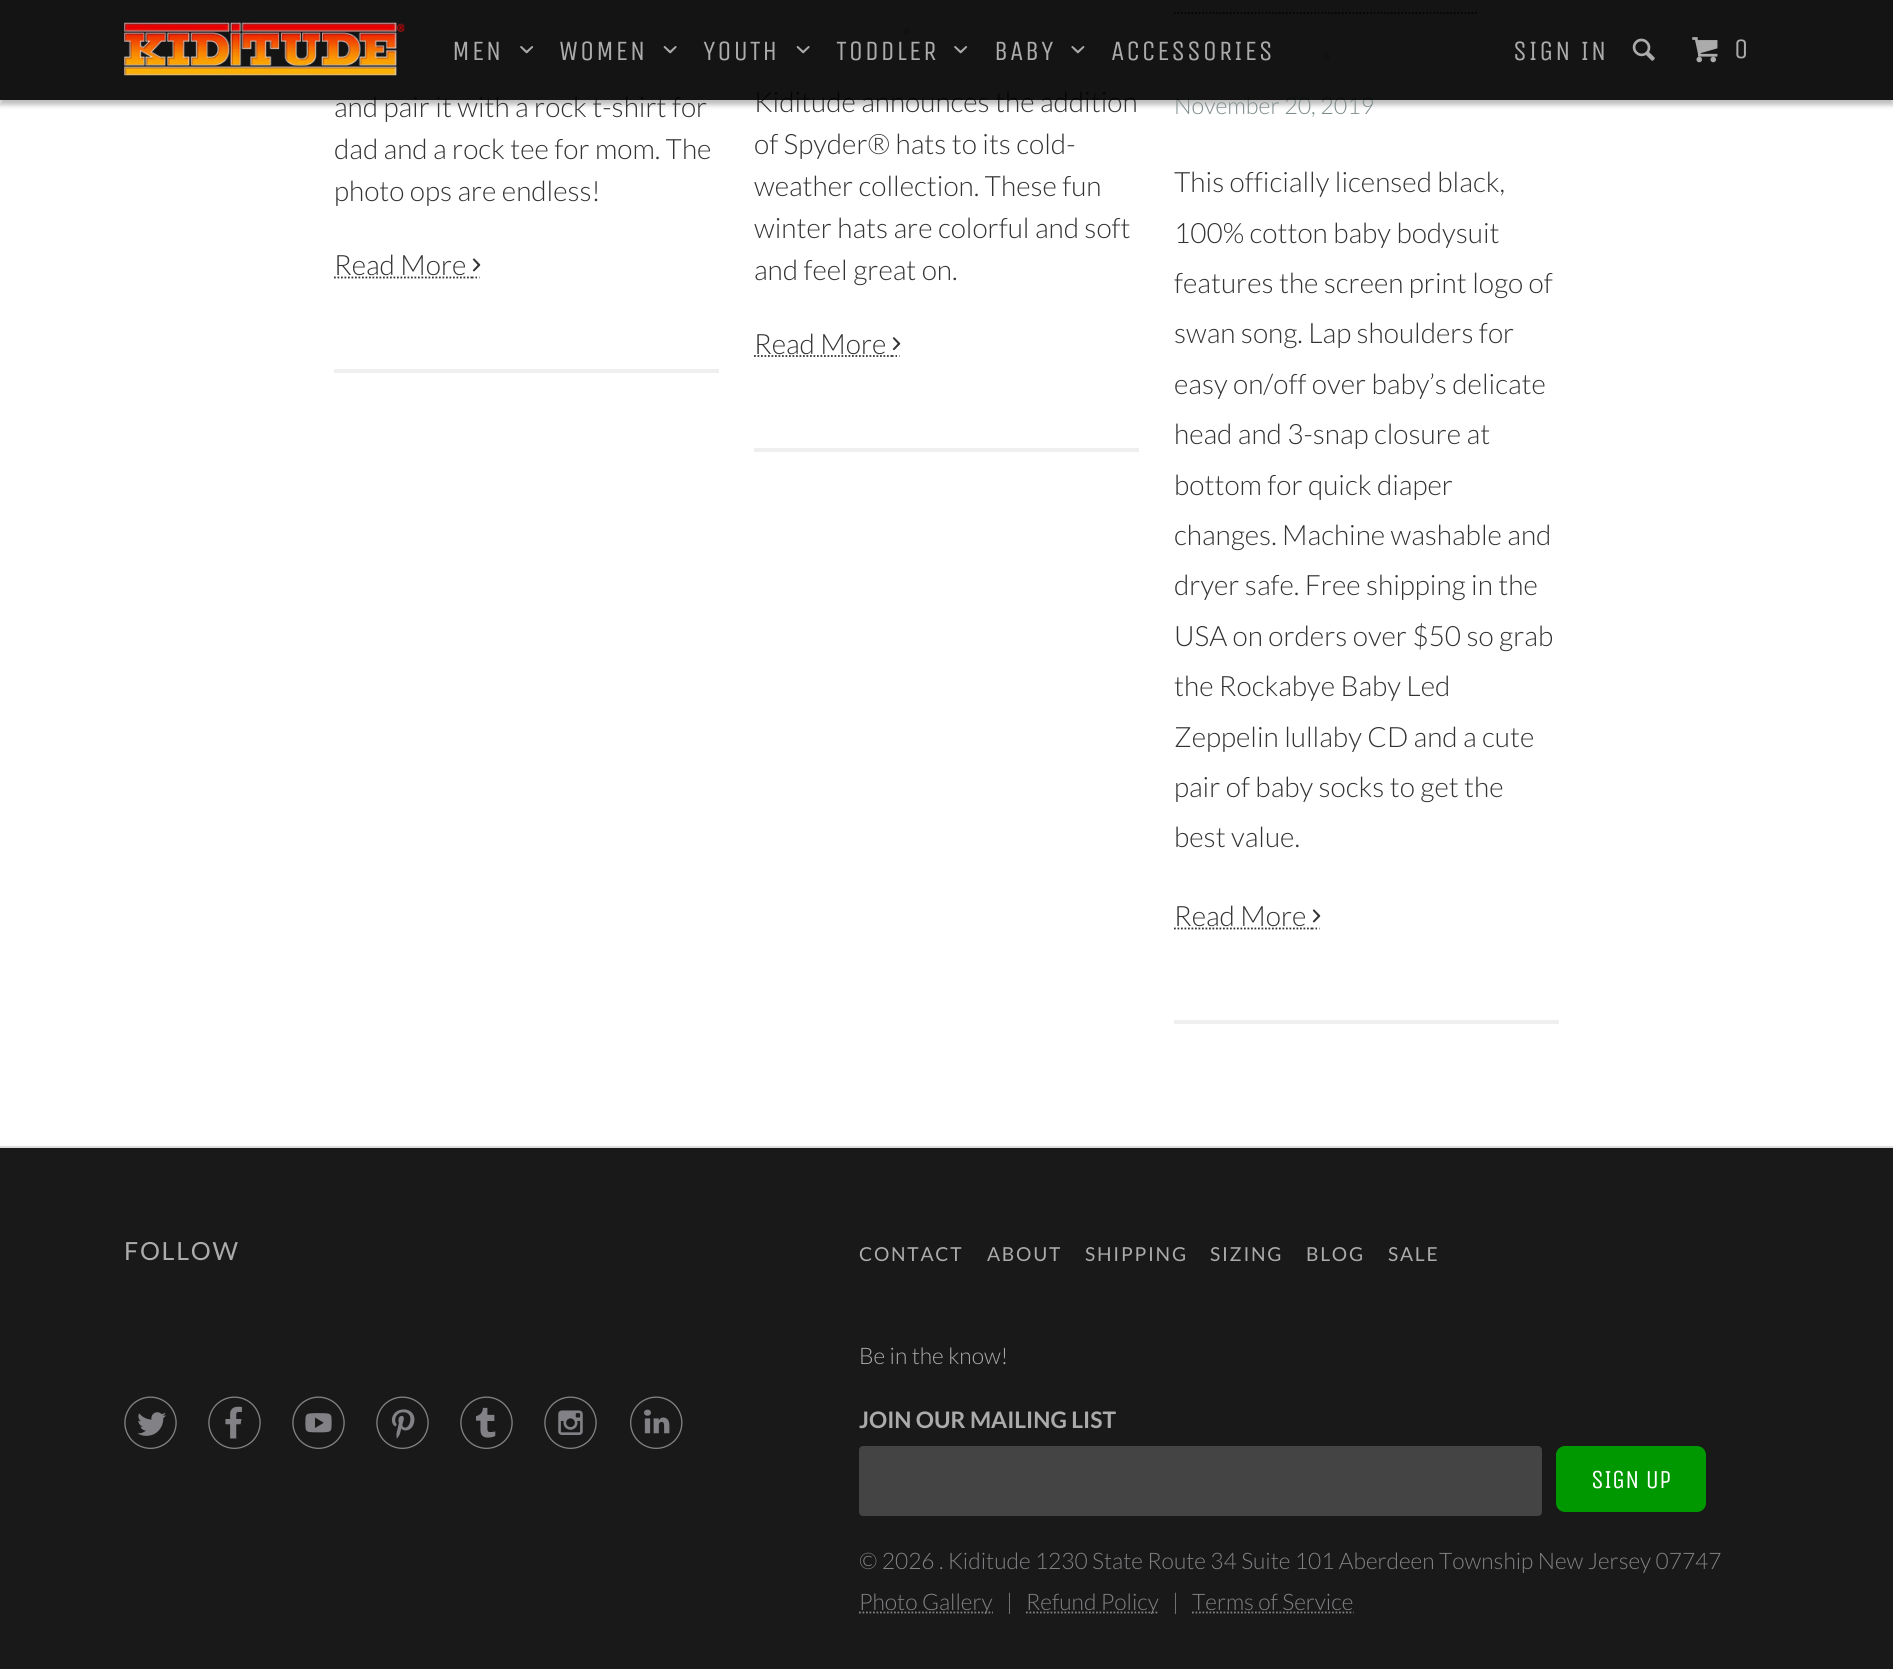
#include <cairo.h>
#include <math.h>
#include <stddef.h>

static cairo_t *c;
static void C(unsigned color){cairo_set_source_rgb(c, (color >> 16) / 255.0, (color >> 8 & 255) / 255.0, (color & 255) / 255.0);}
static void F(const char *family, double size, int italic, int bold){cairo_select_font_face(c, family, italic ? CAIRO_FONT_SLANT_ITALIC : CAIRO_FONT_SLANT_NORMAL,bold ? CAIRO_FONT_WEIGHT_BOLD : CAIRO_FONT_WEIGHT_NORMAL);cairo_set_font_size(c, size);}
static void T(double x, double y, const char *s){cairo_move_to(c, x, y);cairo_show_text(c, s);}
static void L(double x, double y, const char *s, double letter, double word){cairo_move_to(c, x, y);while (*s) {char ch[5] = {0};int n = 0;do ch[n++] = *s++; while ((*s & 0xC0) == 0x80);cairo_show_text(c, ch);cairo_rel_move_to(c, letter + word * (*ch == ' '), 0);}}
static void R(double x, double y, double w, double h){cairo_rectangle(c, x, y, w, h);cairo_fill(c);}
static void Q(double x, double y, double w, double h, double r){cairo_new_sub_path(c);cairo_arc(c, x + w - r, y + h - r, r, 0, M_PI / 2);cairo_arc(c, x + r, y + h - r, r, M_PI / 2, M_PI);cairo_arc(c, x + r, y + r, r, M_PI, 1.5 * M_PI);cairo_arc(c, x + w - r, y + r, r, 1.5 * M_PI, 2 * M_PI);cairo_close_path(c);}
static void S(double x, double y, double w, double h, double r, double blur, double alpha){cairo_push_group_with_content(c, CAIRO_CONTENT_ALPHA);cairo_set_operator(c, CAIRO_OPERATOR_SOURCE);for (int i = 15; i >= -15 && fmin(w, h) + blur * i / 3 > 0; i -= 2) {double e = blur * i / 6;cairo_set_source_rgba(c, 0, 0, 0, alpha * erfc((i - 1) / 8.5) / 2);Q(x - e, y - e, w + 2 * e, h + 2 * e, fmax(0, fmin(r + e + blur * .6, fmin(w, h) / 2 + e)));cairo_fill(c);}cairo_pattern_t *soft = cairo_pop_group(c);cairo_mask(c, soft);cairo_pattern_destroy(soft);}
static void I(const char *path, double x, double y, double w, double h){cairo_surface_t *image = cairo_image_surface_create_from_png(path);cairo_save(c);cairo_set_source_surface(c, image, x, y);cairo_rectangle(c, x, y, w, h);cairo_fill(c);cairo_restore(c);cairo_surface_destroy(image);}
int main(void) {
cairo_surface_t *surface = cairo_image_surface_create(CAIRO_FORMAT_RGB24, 1893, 1669);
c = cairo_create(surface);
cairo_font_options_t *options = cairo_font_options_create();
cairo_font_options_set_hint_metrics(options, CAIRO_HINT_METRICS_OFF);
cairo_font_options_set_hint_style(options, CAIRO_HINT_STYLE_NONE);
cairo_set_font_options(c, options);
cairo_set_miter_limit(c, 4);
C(0xffffff);
cairo_paint(c);
C(0xced3d3);
cairo_arc(c,906.5,31.5,3.5,0,2 * M_PI);
cairo_fill(c);
cairo_new_path(c);
cairo_move_to(c,1174,13);
cairo_line_to(c,1477,13);
C(0x333333);
cairo_set_line_width(c,1.8);
cairo_set_dash(c,(double[]){1.75,1.75},2,0);
cairo_stroke(c);
C(0xced3d3);
cairo_arc(c,1326.5,56.5,3.5,0,2 * M_PI);
cairo_fill(c);
cairo_save(c);
cairo_set_fill_rule(c,CAIRO_FILL_RULE_EVEN_ODD);
cairo_new_path(c);
cairo_move_to(c,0,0);
cairo_line_to(c,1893,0);
cairo_line_to(c,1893,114);
cairo_line_to(c,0,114);
cairo_close_path(c);
cairo_move_to(c,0,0);
cairo_line_to(c,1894,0);
cairo_line_to(c,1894,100);
cairo_line_to(c,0,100);
cairo_close_path(c);
cairo_clip(c);
C(0x000000);
S(0,5,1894,100,0,2.5,.26);
cairo_restore(c);
F("Lato Light",28,0,0);
C(0x333333);
T(334,117,"and pair it with a rock t-shirt for");
T(754,112,"Kiditude announces the addition");
F("Lato Light",23.25,0,0);
C(0x7f8c8d);
T(1174,114,"November 20, 2019");
cairo_set_source_rgba(c,0,0,0,0.92);
R(0,0,1893,100);
I("1.png",124,22,281,54);
F("Unica One",28,0,0);
C(0xababab);
L(452,60,"MEN",1.75,0);
I("2.png",520,46,14,8);
L(559,60,"WOMEN",1.75,0);
I("3.png",663,46,14,8);
L(703,60,"YOUTH",1.75,0);
I("3.png",796,46,14,8);
L(836,60,"TODDLER",1.75,0);
I("2.png",954,46,14,8);
L(994,60,"BABY",1.75,0);
I("4.png",1071,46,14,8);
L(1111,60,"ACCESSORIES",1.75,0);
L(1513,60,"SIGN IN",1.75,0);
I("5.png",1632,38,23,23);
I("6.png",1692,37,26,26);
L(1734,58,"0",1.75,0);
C(0xefefef);
R(334,369,385,4);
F("Lato Light",28,0,0);
C(0x333333);
T(334,159,"dad and a rock tee for mom. The");
T(334,201,"photo ops are endless!");
T(334,275,"Read More");
cairo_new_path(c);
cairo_move_to(c,334,277.5);
cairo_line_to(c,472,277.5);
cairo_stroke(c);
cairo_new_path(c);
cairo_move_to(c,472,277.5);
cairo_line_to(c,473.5,277.5);
cairo_move_to(c,475.5,277.5);
cairo_line_to(c,477,277.5);
cairo_move_to(c,479,277.5);
cairo_line_to(c,479.5,277.5);
cairo_set_dash(c,NULL,0,0);
cairo_stroke(c);
I("7.png",472,258,9,14);
C(0xefefef);
R(754,448,385,4);
C(0x333333);
T(754,154,"of Spyder® hats to its cold-");
T(754,196,"weather collection. These fun");
T(754,238,"winter hats are colorful and soft");
T(754,280,"and feel great on.");
T(754,354,"Read More");
cairo_new_path(c);
cairo_move_to(c,754,356);
cairo_line_to(c,892,356);
cairo_set_dash(c,(double[]){1.75,1.75},2,0);
cairo_stroke(c);
cairo_new_path(c);
cairo_move_to(c,892,356);
cairo_line_to(c,893.5,356);
cairo_move_to(c,895.5,356);
cairo_line_to(c,897,356);
cairo_move_to(c,899,356);
cairo_line_to(c,899.5,356);
cairo_set_dash(c,NULL,0,0);
cairo_stroke(c);
I("8.png",892,337,9,14);
C(0xefefef);
R(1174,1020,385,4);
C(0x333333);
T(1174,192,"This officially licensed black,");
T(1174,243,"100% cotton baby bodysuit");
T(1174,293,"features the screen print logo of");
T(1174,343,"swan song. Lap shoulders for");
T(1174,394,"easy on/off over baby’s delicate");
T(1174,444,"head and 3-snap closure at");
T(1174,495,"bottom for quick diaper");
T(1174,545,"changes. Machine washable and");
T(1174,595,"dryer safe. Free shipping in the");
T(1174,646,"USA on orders over $50 so grab");
T(1174,696,"the Rockabye Baby Led");
T(1174,747,"Zeppelin lullaby CD and a cute");
T(1174,797,"pair of baby socks to get the");
T(1174,847,"best value.");
T(1174,926,"Read More");
cairo_new_path(c);
cairo_move_to(c,1174,928.5);
cairo_line_to(c,1312,928.5);
cairo_set_dash(c,(double[]){1.75,1.75},2,0);
cairo_stroke(c);
cairo_new_path(c);
cairo_move_to(c,1312,928.5);
cairo_line_to(c,1313.5,928.5);
cairo_move_to(c,1315.5,928.5);
cairo_line_to(c,1317,928.5);
cairo_move_to(c,1319,928.5);
cairo_line_to(c,1319.5,928.5);
cairo_set_dash(c,NULL,0,0);
cairo_stroke(c);
I("7.png",1312,909,9,14);
C(0x191919);
R(0,1148,1893,521);
C(0xdddddd);
R(0,1146,1893,2);
F("Lato",25,0,0);
C(0xababab);
L(124,1260,"FOLLOW",1.75,0);
I("9.png",124,1396,53,53);
I("10.png",208,1396,53,53);
I("11.png",292,1396,53,53);
I("12.png",376,1396,53,53);
I("13.png",460,1396,53,53);
I("14.png",544,1396,53,53);
I("15.png",630,1396,53,53);
F("Lato",19.25,0,0);
L(859,1261,"CONTACT",1.75,0);
L(987,1261,"ABOUT",1.75,0);
L(1085,1261,"SHIPPING",1.75,0);
L(1210,1261,"SIZING",1.75,0);
L(1306,1261,"BLOG",1.75,0);
L(1388,1261,"SALE",1.75,0);
F("Lato Light",22.75,0,0);
T(859,1364,"Be in the know!");
F("Lato",22.75,0,1);
T(859,1428,"JOIN OUR MAILING LIST");
C(0x444444);
Q(860,1447,681,68,3);
cairo_fill_preserve(c);
cairo_set_line_width(c,2);
cairo_stroke(c);
C(0x009800);
Q(1556,1446,150,66,9);
cairo_fill(c);
F("Unica One",26,0,0);
C(0xffffff);
T(1591,1488,"SIGN UP");
F("Lato Light",22.75,0,0);
C(0x828286);
T(859,1569,"© 2026 . Kiditude 1230 State Route 34 Suite 101 Aberdeen Township New Jersey 07747");
cairo_new_path(c);
cairo_move_to(c,859,1612.5);
cairo_line_to(c,993,1612.5);
cairo_set_line_width(c,1.8);
cairo_set_dash(c,(double[]){1.75,1.75},2,0);
cairo_stroke(c);
T(859,1610,"Photo Gallery");
T(1006,1610,"|");
cairo_new_path(c);
cairo_move_to(c,1026,1612.5);
cairo_line_to(c,1159,1612.5);
cairo_stroke(c);
T(1026,1610,"Refund Policy");
T(1172,1610,"|");
T(1192,1610,"Terms of Service");
cairo_new_path(c);
cairo_move_to(c,1192,1612.5);
cairo_line_to(c,1353.5,1612.5);
cairo_stroke(c);
cairo_surface_write_to_png(surface, "o.png");
cairo_font_options_destroy(options);
cairo_destroy(c);
cairo_surface_destroy(surface);
return 0;
}
